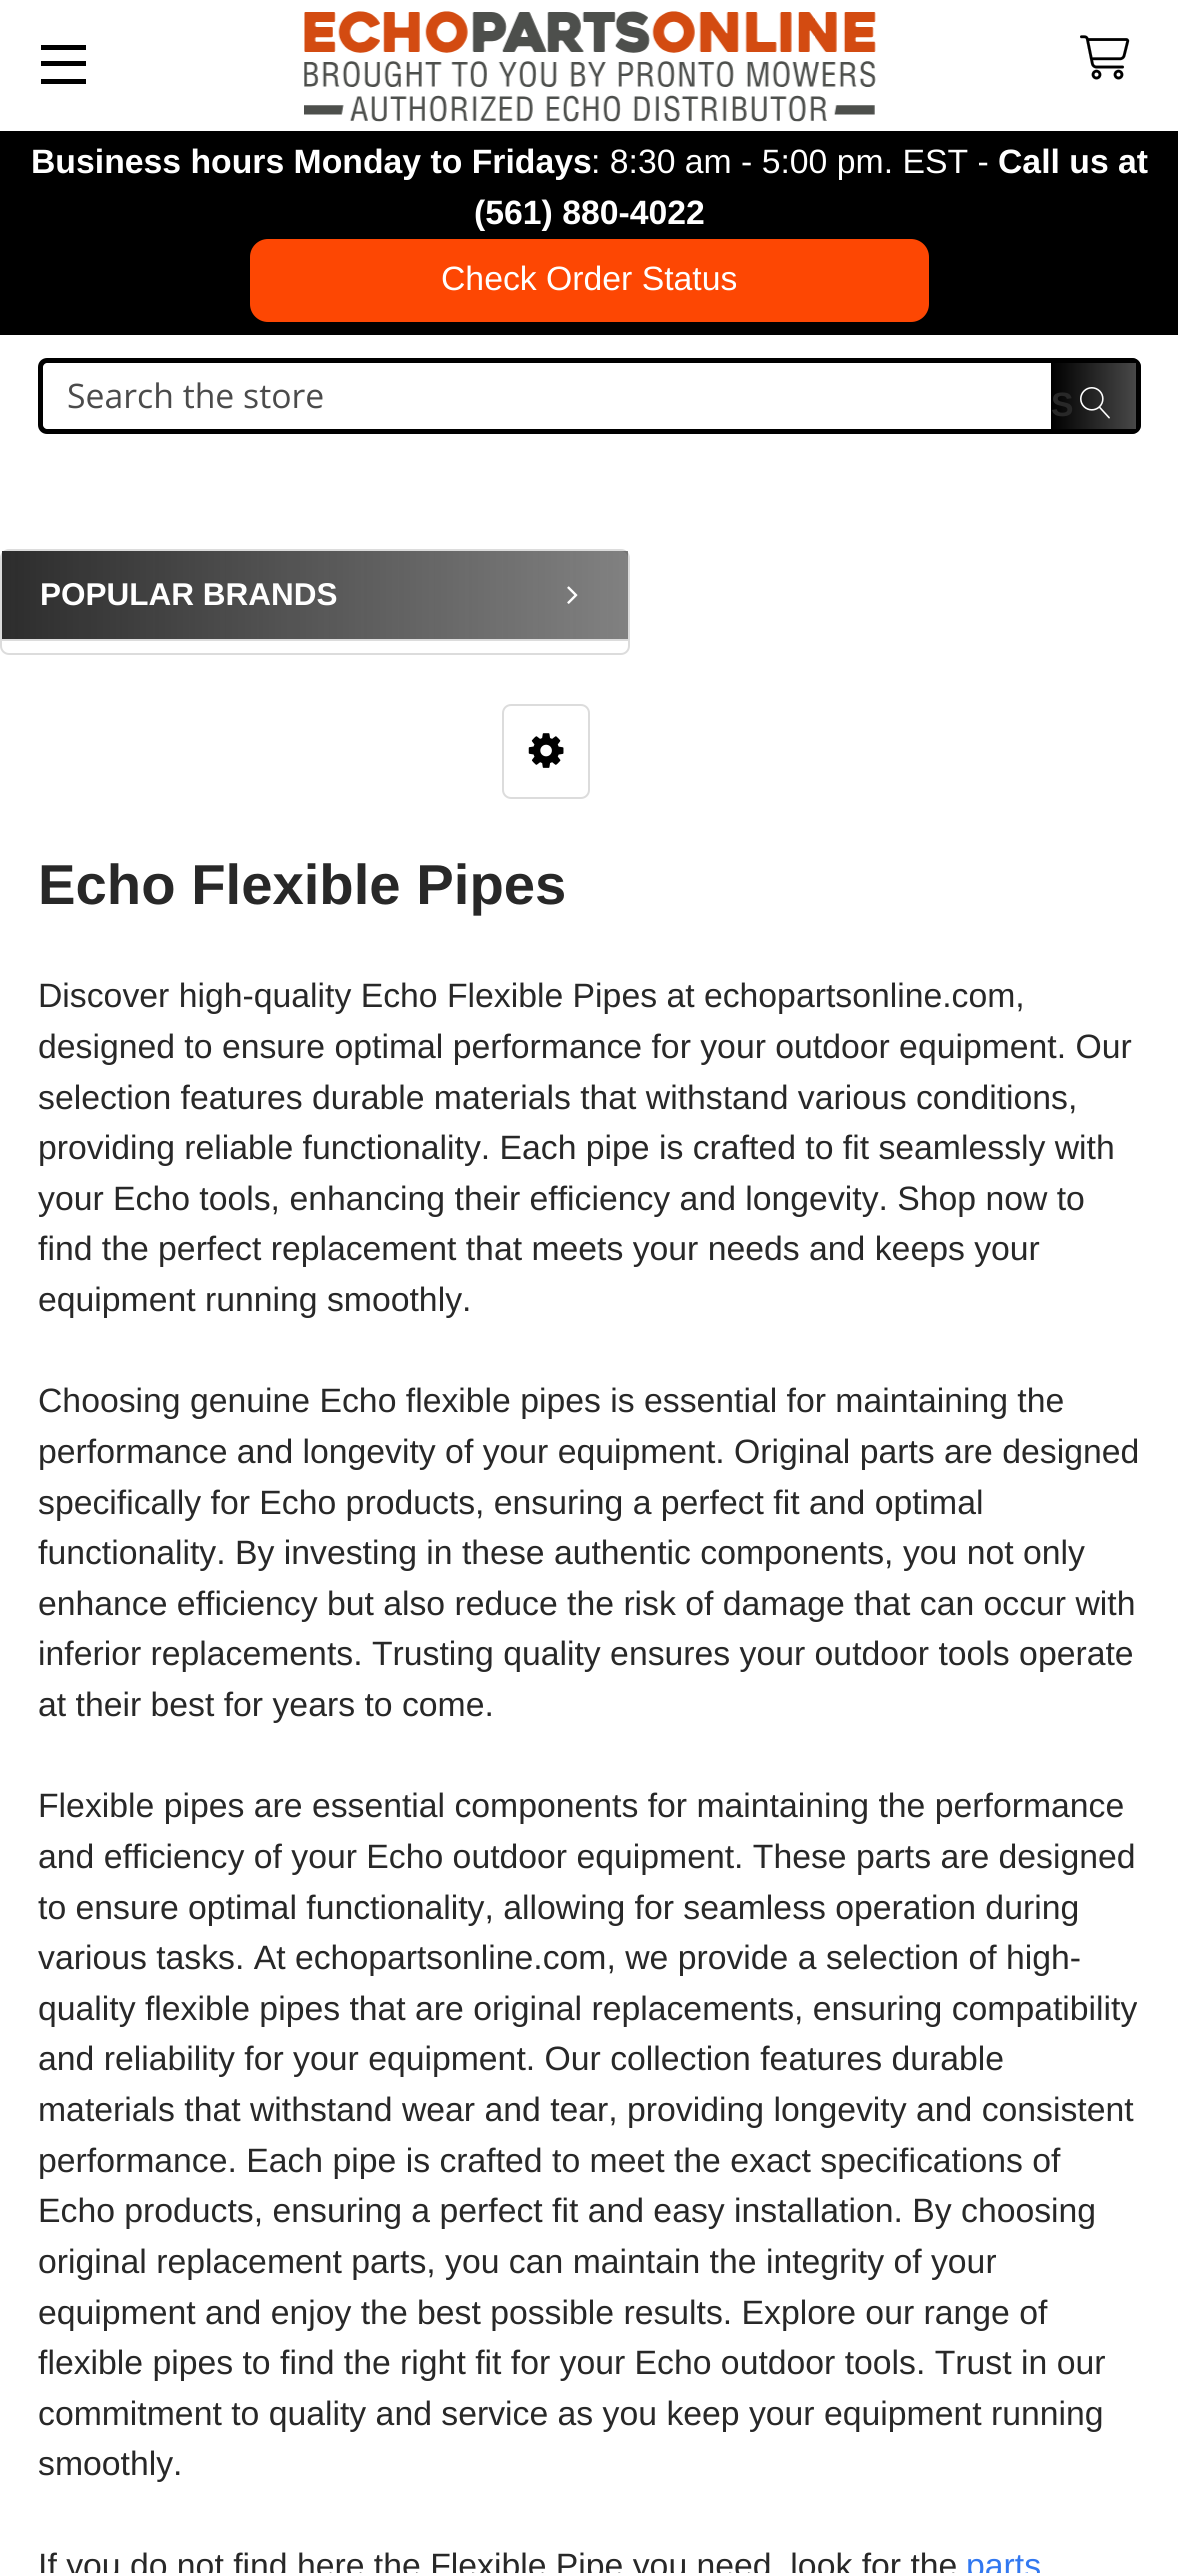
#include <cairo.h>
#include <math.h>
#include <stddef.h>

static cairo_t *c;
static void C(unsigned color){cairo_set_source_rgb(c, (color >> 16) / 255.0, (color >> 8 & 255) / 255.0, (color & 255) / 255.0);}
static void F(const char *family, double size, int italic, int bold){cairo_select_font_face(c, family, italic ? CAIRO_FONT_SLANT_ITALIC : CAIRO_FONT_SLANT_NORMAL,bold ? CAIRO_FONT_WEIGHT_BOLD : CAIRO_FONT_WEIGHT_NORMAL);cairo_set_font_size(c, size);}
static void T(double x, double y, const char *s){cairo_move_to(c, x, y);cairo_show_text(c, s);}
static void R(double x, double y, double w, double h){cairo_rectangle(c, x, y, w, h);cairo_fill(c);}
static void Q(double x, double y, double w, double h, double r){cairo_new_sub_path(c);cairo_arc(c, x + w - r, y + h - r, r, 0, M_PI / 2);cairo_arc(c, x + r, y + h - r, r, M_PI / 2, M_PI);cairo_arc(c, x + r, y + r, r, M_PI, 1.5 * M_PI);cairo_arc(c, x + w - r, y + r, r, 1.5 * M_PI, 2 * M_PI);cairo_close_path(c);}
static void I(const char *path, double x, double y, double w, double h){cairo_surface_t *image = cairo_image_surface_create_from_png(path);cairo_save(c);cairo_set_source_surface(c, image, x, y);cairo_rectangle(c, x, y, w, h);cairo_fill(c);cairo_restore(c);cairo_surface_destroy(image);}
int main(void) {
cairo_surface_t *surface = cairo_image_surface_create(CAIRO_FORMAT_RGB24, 1178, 2573);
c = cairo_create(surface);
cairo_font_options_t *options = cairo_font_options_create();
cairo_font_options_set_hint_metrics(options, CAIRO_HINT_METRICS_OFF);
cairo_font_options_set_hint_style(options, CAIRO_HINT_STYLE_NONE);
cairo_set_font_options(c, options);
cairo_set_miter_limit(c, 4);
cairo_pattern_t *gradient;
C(0xffffff);
cairo_paint(c);
C(0x000000);
R(41,61,45,5);
R(41,45,45,5);
R(41,79,45,5);
I("1.png",304,11,572,111);
I("2.png",1080,35,50,45);
R(0,131,1178,204);
F("Liberation Sans",33.75,0,1);
C(0xffffff);
T(31,173,"Business hours Monday to Fridays");
F("Liberation Sans",33.75,0,0);
T(591,173,": 8:30 am - 5:00 pm. EST -");
F("Liberation Sans",33.75,0,1);
T(998,173,"Call us at");
T(474,224,"(561) 880-4022");
C(0xfd4703);
Q(250,239,679,83,18);
cairo_fill(c);
F("Liberation Sans",33.75,0,0);
C(0xffffff);
T(441,290,"Check Order Status");
C(0x000000);
cairo_set_fill_rule(c,CAIRO_FILL_RULE_EVEN_ODD);
cairo_new_path(c);
cairo_move_to(c,47,358);
cairo_curve_to(c,42,358,38,362,38,367);
cairo_line_to(c,38,425);
cairo_curve_to(c,38,430,42,434,47,434);
cairo_line_to(c,1132,434);
cairo_curve_to(c,1137,434,1141,430,1141,425);
cairo_line_to(c,1141,367);
cairo_curve_to(c,1141,362,1137,358,1132,358);
cairo_close_path(c);
cairo_move_to(c,47,363);
cairo_curve_to(c,45,363,43,365,43,367);
cairo_line_to(c,43,425);
cairo_curve_to(c,43,427,45,429,47,429);
cairo_line_to(c,1136,429);
cairo_line_to(c,1136,363);
cairo_close_path(c);
cairo_fill(c);
F("Open Sans",33.75,0,0);
C(0x4b4b4b);
T(67,408,"Search the store");
gradient = cairo_pattern_create_linear(1051,403,1141,403);
cairo_pattern_add_color_stop_rgba(gradient,0,0,0,0,1);
cairo_pattern_add_color_stop_rgba(gradient,1,0,0,0,.7);
cairo_set_source(c,gradient);
cairo_pattern_destroy(gradient);
cairo_new_path(c);
cairo_move_to(c,1051,358);
cairo_line_to(c,1132,358);
cairo_curve_to(c,1137,358,1141,362,1141,367);
cairo_line_to(c,1141,425);
cairo_curve_to(c,1141,430,1137,434,1132,434);
cairo_line_to(c,1051,434);
cairo_close_path(c);
cairo_fill(c);
F("Liberation Sans",33.75,0,1);
C(0x282828);
T(1051,416,"S");
I("3.png",1080,387,30,32);
Q(1,550,628,104,8);
C(0xdcdcdc);
cairo_stroke(c);
gradient = cairo_pattern_create_linear(2.2,595,628,595);
cairo_pattern_add_color_stop_rgba(gradient,0,0.176,0.176,0.176,1);
cairo_pattern_add_color_stop_rgba(gradient,1,0.176,0.176,0.176,.6);
cairo_set_source(c,gradient);
cairo_pattern_destroy(gradient);
R(2,551,626,88);
C(0xdcdcdc);
R(2,639,626,2);
F("Liberation Sans",31.5,0,1);
C(0xffffff);
T(40,605,"POPULAR BRANDS");
I("4.png",567,586,11,18);
Q(503,705,86,93,8);
C(0xdcdcdc);
cairo_stroke(c);
I("5.png",528,733,36,35);
F("Liberation Sans",56.25,0,1);
C(0x282828);
T(38,904,"Echo Flexible Pipes");
F("Liberation Sans",33.75,0,0);
T(38,1007,"Discover high-quality Echo Flexible Pipes at echopartsonline.com,");
T(38,1058,"designed to ensure optimal performance for your outdoor equipment. Our");
T(38,1109,"selection features durable materials that withstand various conditions,");
T(38,1159,"providing reliable functionality. Each pipe is crafted to fit seamlessly with");
T(38,1210,"your Echo tools, enhancing their efficiency and longevity. Shop now to");
T(38,1260,"find the perfect replacement that meets your needs and keeps your");
T(38,1311,"equipment running smoothly.");
T(38,1412,"Choosing genuine Echo flexible pipes is essential for maintaining the");
T(38,1463,"performance and longevity of your equipment. Original parts are designed");
T(38,1514,"specifically for Echo products, ensuring a perfect fit and optimal");
T(38,1564,"functionality. By investing in these authentic components, you not only");
T(38,1615,"enhance efficiency but also reduce the risk of damage that can occur with");
T(38,1665,"inferior replacements. Trusting quality ensures your outdoor tools operate");
T(38,1716,"at their best for years to come.");
T(38,1817,"Flexible pipes are essential components for maintaining the performance");
T(38,1868,"and efficiency of your Echo outdoor equipment. These parts are designed");
T(38,1919,"to ensure optimal functionality, allowing for seamless operation during");
T(38,1969,"various tasks. At echopartsonline.com, we provide a selection of high-");
T(38,2020,"quality flexible pipes that are original replacements, ensuring compatibility");
T(38,2070,"and reliability for your equipment. Our collection features durable");
T(38,2121,"materials that withstand wear and tear, providing longevity and consistent");
T(38,2172,"performance. Each pipe is crafted to meet the exact specifications of");
T(38,2222,"Echo products, ensuring a perfect fit and easy installation. By choosing");
T(38,2273,"original replacement parts, you can maintain the integrity of your");
T(38,2324,"equipment and enjoy the best possible results. Explore our range of");
T(38,2374,"flexible pipes to find the right fit for your Echo outdoor tools. Trust in our");
T(38,2425,"commitment to quality and service as you keep your equipment running");
T(38,2475,"smoothly.");
T(38,2577,"If you do not find here the Flexible Pipe you need, look for the");
C(0x3278f0);
T(966,2577,"parts");
cairo_surface_write_to_png(surface, "o.png");
cairo_font_options_destroy(options);
cairo_destroy(c);
cairo_surface_destroy(surface);
return 0;
}
